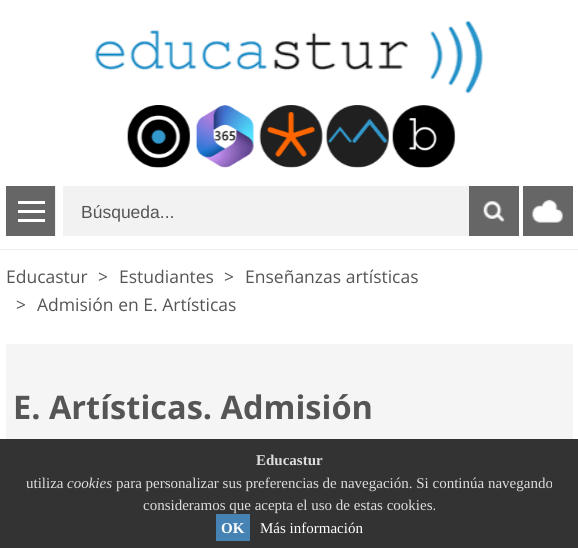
#include <cairo.h>
#include <math.h>
#include <stddef.h>

static cairo_t *c;
static void C(unsigned color){cairo_set_source_rgb(c, (color >> 16) / 255.0, (color >> 8 & 255) / 255.0, (color & 255) / 255.0);}
static void F(const char *family, double size, int italic, int bold){cairo_select_font_face(c, family, italic ? CAIRO_FONT_SLANT_ITALIC : CAIRO_FONT_SLANT_NORMAL,bold ? CAIRO_FONT_WEIGHT_BOLD : CAIRO_FONT_WEIGHT_NORMAL);cairo_set_font_size(c, size);}
static void T(double x, double y, const char *s){cairo_move_to(c, x, y);cairo_show_text(c, s);}
static void R(double x, double y, double w, double h){cairo_rectangle(c, x, y, w, h);cairo_fill(c);}
static void I(const char *path, double x, double y, double w, double h){cairo_surface_t *image = cairo_image_surface_create_from_png(path);cairo_save(c);cairo_set_source_surface(c, image, x, y);cairo_rectangle(c, x, y, w, h);cairo_fill(c);cairo_restore(c);cairo_surface_destroy(image);}
int main(void) {
cairo_surface_t *surface = cairo_image_surface_create(CAIRO_FORMAT_RGB24, 578, 548);
c = cairo_create(surface);
cairo_font_options_t *options = cairo_font_options_create();
cairo_font_options_set_hint_metrics(options, CAIRO_HINT_METRICS_OFF);
cairo_font_options_set_hint_style(options, CAIRO_HINT_STYLE_NONE);
cairo_set_font_options(c, options);
cairo_set_miter_limit(c, 4);
C(0xffffff);
cairo_paint(c);
C(0xececec);
R(0,249,578,1);
I("1.png",94,21,389,73);
I("2.png",127,105,64,63);
I("3.png",195,105,59,63);
I("4.png",259,105,64,63);
I("5.png",325,105,64,63);
I("6.png",392,105,64,63);
C(0x666666);
R(6,186,49,50);
C(0xefefef);
R(55,186,1,50);
C(0xffffff);
R(18,201,27,3);
R(18,210,27,3);
R(18,219,27,3);
C(0xf2f2f2);
R(63,186,406,50);
F("Liberation Sans",17.5,0,0);
C(0x555555);
T(81,218,"Búsqueda...");
C(0x666666);
R(469,186,50,50);
I("7.png",483,201,22,21);
R(523,186,50,50);
I("8.png",531,199,32,24);
F("Open Sans",17.5,0,0);
C(0x555555);
T(6,283,"Educastur");
T(98,283,">");
T(119,283,"Estudiantes");
T(224,283,">");
T(245,283,"Enseñanzas artísticas");
T(16,311,">");
T(37,311,"Admisión en E. Artísticas");
C(0xf5f5f5);
R(6,344,567,95);
F("Open Sans",32.5,0,1);
C(0x555555);
T(13,419,"E. Artísticas. Admisión");
C(0x333333);
R(0,439,578,109);
F("Liberation Serif",15,0,1);
C(0xdddddd);
T(256,465,"Educastur");
F("Liberation Serif",15,0,0);
T(26,488,"utiliza");
F("Liberation Serif",15,1,0);
T(67,488,"cookies");
F("Liberation Serif",15,0,0);
T(116,488,"para personalizar sus preferencias de navegación. Si continúa navegando");
T(143,510,"consideramos que acepta el uso de estas cookies.");
C(0x4682b4);
R(216,514,34,27);
F("Liberation Serif",15,0,1);
C(0xffffff);
T(221,533,"OK");
F("Liberation Serif",15,0,0);
T(260,533,"Más información");
cairo_surface_write_to_png(surface, "o.png");
cairo_font_options_destroy(options);
cairo_destroy(c);
cairo_surface_destroy(surface);
return 0;
}
